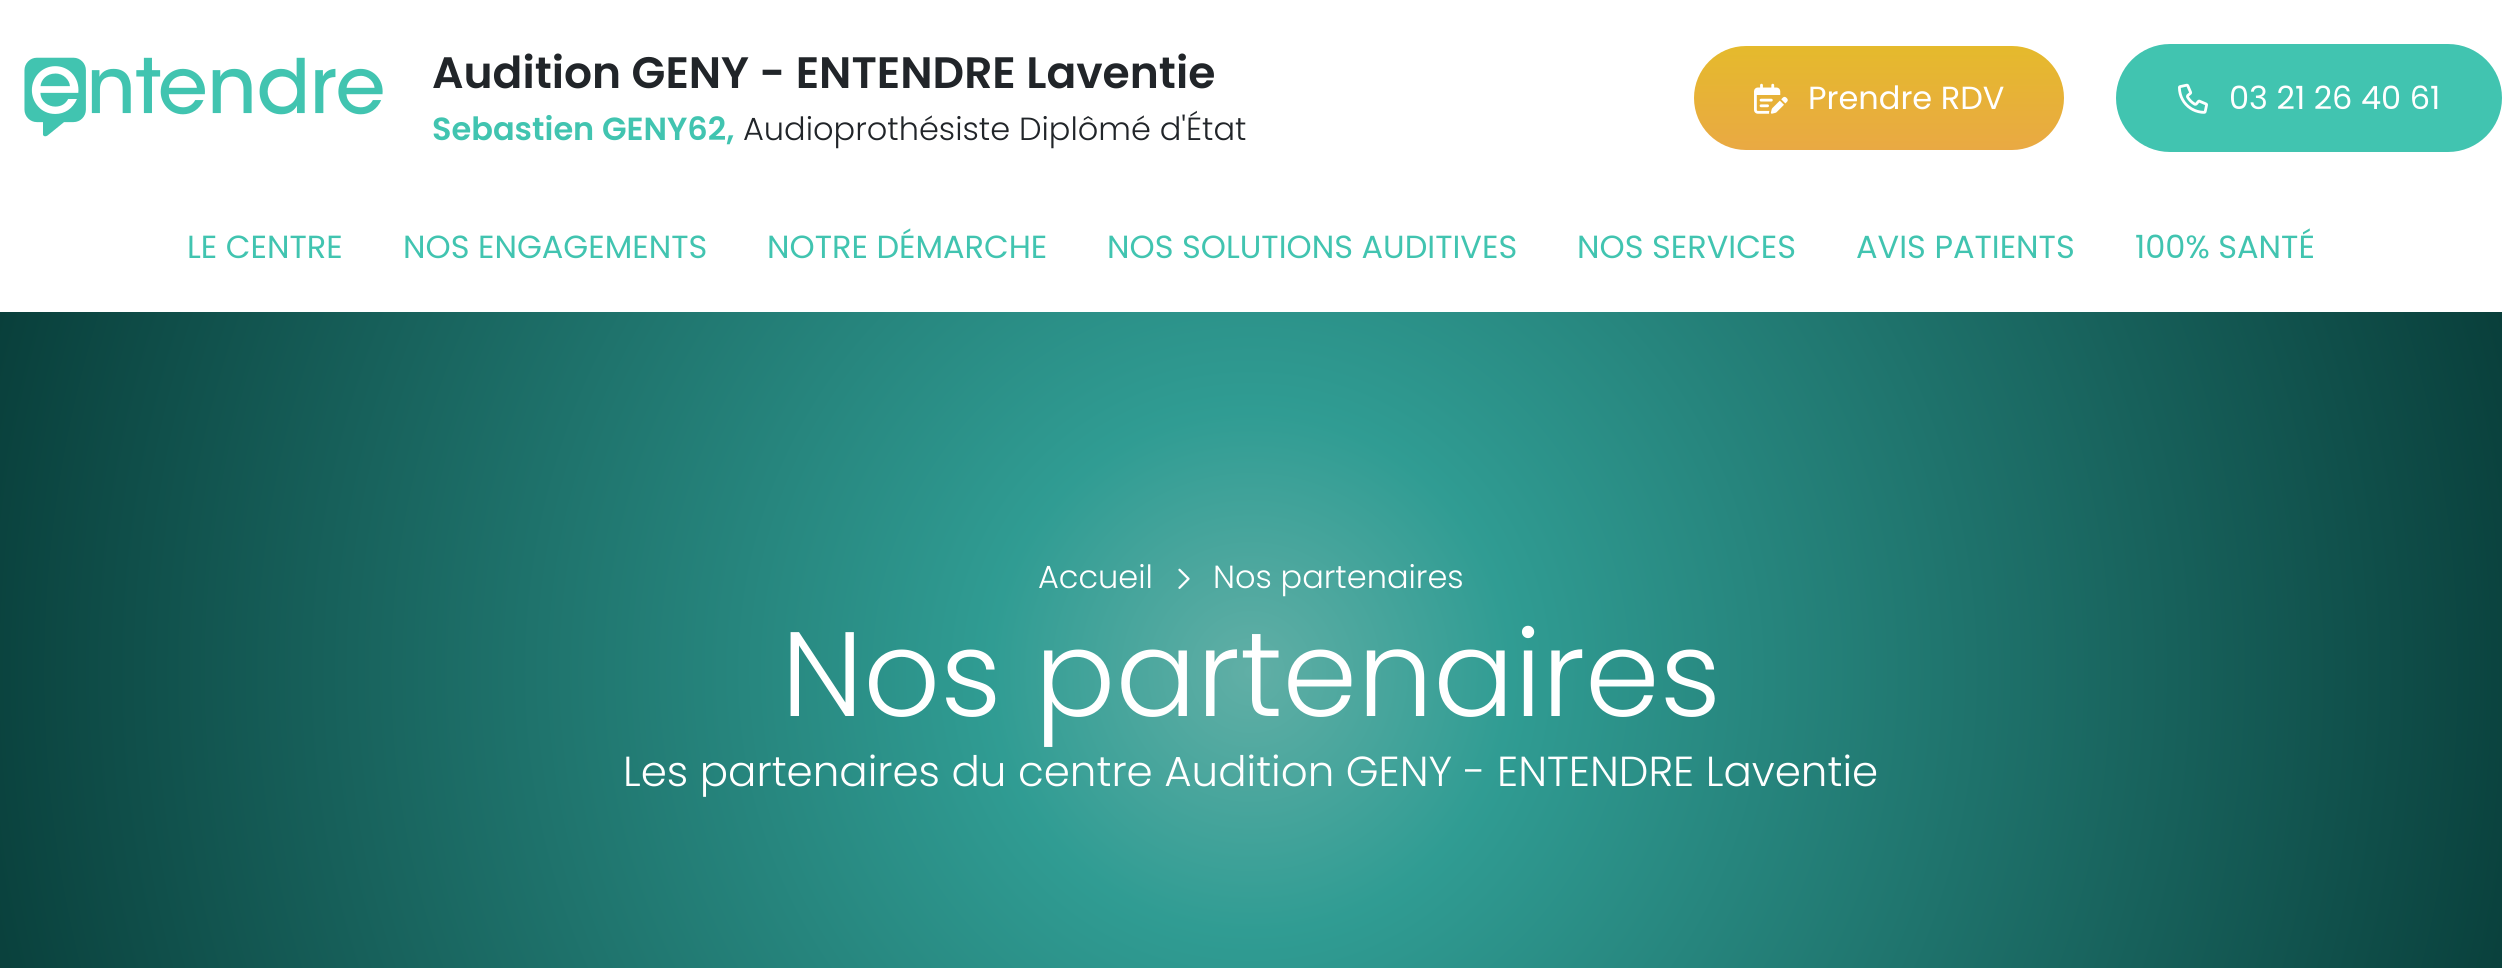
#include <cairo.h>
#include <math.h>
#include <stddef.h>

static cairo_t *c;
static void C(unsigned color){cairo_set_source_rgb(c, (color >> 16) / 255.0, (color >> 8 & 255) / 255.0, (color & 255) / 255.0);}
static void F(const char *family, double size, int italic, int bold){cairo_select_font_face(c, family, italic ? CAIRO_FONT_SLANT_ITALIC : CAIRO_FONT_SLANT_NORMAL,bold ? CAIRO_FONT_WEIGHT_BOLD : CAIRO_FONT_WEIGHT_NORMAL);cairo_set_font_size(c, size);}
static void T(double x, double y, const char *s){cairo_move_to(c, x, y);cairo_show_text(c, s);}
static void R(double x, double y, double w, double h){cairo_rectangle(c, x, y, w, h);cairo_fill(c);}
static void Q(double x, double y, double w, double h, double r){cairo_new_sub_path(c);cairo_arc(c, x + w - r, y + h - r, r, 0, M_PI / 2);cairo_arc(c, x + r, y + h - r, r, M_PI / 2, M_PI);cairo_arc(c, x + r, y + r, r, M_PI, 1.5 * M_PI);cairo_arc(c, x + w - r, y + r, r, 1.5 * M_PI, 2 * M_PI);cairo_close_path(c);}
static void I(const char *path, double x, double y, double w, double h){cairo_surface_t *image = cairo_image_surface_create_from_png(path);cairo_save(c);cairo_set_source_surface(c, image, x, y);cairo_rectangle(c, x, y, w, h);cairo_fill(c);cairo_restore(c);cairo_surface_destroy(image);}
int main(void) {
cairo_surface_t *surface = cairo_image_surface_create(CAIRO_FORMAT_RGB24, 2502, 968);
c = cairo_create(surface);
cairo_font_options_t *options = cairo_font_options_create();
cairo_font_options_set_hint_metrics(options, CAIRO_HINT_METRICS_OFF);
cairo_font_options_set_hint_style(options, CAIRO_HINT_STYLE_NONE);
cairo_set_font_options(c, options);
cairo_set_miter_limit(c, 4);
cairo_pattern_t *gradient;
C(0xffffff);
cairo_paint(c);
I("1.png",24,57,359,80);
F("Poppins SemiBold",44,0,0);
C(0x212529);
T(432,88,"Audition GENY - ENTENDRE Laventie");
F("Poppins SemiBold",32,0,0);
C(0x41c4b0);
T(432,140,"Sebastien GENY62,");
F("Poppins Light",32,0,0);
C(0x212529);
T(743,140,"Audioprothésiste Diplômé d'État");
gradient = cairo_pattern_create_linear(1879,46,1879,150);
cairo_pattern_add_color_stop_rgba(gradient,0,0.898,0.729,0.173,1);
cairo_pattern_add_color_stop_rgba(gradient,1,0.914,0.663,0.263,1);
cairo_set_source(c,gradient);
cairo_pattern_destroy(gradient);
Q(1694,46,370,104,52);
cairo_fill(c);
I("2.png",1754,83,34,31);
F("Poppins",32,0,0);
C(0xffffff);
T(1808,109,"Prendre RDV");
C(0x41c4b0);
Q(2117,45,384,106,53);
cairo_fill_preserve(c);
cairo_stroke(c);
I("3.png",2178,83,30,31);
C(0xffffff);
T(2229,109,"03 21 26 40 61");
C(0x41c4b0);
T(187,258,"LE CENTRE");
T(403,258,"NOS ENGAGEMENTS");
T(767,258,"NOTRE DÉMARCHE");
T(1107,258,"NOS SOLUTIONS AUDITIVES");
T(1577,258,"NOS SERVICES");
T(1856,258,"AVIS PATIENTS");
T(2135,258,"100% SANTÉ");
gradient = cairo_pattern_create_radial(1251,672,0,1251,672,1302);
cairo_pattern_add_color_stop_rgba(gradient,0,0.38,0.686,0.651,1);
cairo_pattern_add_color_stop_rgba(gradient,.2,0.188,0.612,0.576,1);
cairo_pattern_add_color_stop_rgba(gradient,1,0.035,0.247,0.231,1);
cairo_set_source(c,gradient);
cairo_pattern_destroy(gradient);
R(0,312,2502,656);
F("Poppins Light",32,0,0);
C(0xffffff);
T(1038,588,"Accueil");
I("4.png",1178,568,12,21);
T(1213,588,"Nos partenaires");
F("Poppins Light",120,0,0);
T(781,716,"Nos partenaires");
F("Poppins Light",42,0,0);
T(623,786,"Les partenaires du centre Audition GENY - ENTENDRE Laventie");
cairo_surface_write_to_png(surface, "o.png");
cairo_font_options_destroy(options);
cairo_destroy(c);
cairo_surface_destroy(surface);
return 0;
}
